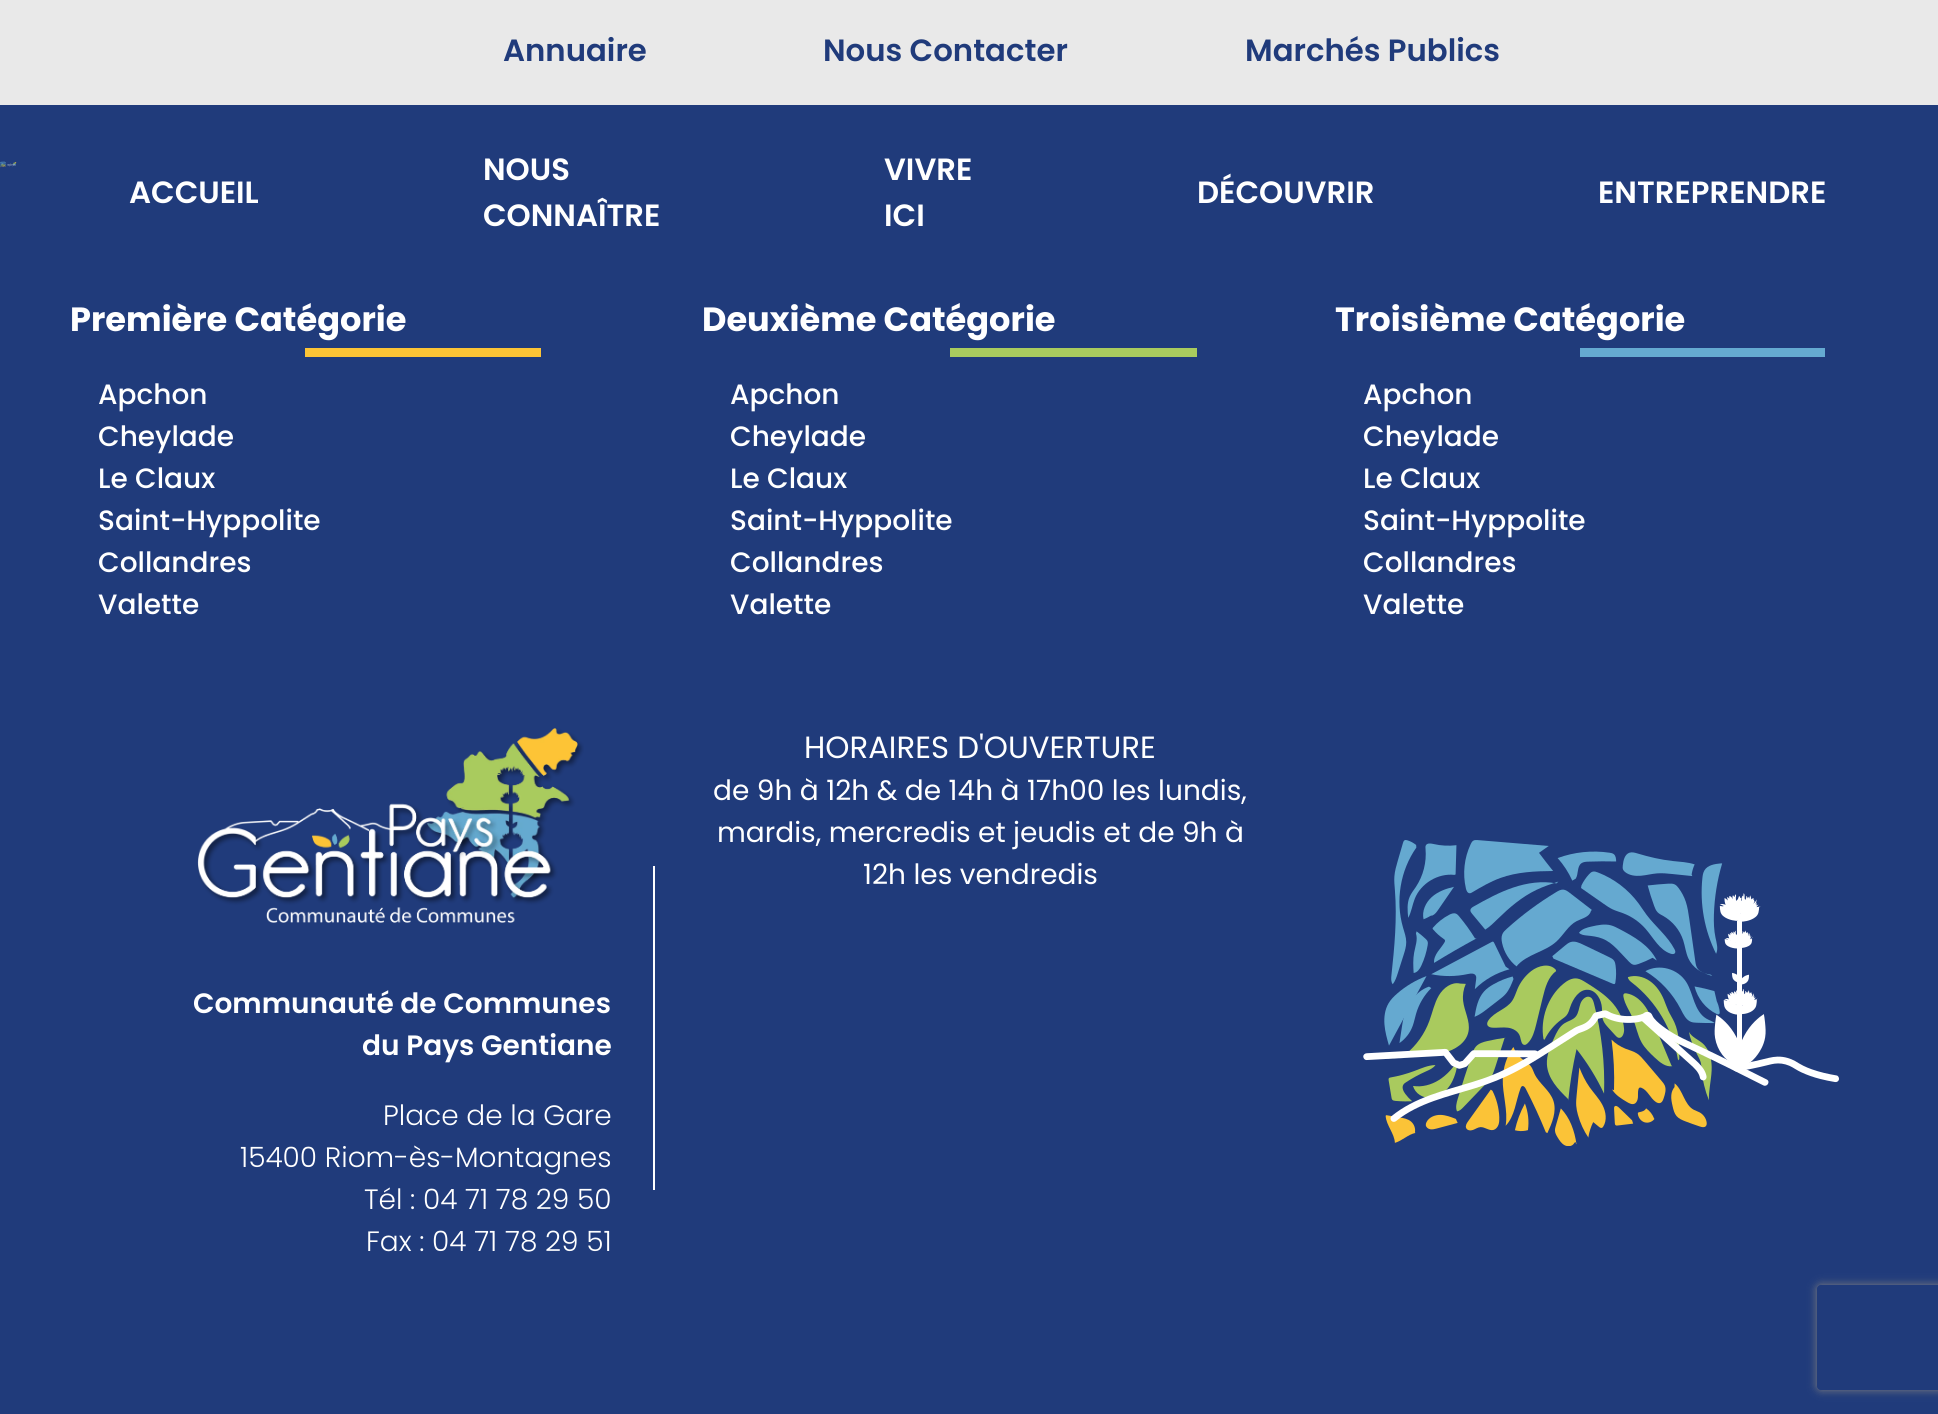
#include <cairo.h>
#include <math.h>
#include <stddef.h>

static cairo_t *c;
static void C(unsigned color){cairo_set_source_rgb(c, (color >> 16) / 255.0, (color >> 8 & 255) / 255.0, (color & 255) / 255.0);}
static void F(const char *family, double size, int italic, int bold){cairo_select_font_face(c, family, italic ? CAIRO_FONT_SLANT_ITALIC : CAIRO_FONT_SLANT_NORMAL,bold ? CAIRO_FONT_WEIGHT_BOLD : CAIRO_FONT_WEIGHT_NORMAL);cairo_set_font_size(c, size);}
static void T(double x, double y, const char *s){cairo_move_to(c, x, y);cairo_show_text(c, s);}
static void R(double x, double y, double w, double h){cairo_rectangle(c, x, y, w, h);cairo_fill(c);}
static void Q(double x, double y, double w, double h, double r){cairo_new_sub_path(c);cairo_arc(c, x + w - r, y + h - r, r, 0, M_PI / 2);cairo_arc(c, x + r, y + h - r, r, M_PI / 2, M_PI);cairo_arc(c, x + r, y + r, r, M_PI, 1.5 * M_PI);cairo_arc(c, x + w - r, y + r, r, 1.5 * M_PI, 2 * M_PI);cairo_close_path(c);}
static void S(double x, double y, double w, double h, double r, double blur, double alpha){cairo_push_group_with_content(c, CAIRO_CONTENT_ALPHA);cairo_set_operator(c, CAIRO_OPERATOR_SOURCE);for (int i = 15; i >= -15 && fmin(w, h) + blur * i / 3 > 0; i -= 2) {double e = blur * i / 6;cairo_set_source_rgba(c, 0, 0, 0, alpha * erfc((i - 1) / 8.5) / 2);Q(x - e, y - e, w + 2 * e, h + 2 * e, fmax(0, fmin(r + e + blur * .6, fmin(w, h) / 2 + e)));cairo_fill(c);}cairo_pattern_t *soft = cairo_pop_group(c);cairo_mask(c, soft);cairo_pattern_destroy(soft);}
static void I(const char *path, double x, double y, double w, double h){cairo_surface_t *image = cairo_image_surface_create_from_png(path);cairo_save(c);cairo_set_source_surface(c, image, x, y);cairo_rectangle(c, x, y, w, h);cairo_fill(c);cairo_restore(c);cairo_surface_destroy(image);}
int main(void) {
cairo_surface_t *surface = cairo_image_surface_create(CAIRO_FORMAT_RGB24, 1938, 1414);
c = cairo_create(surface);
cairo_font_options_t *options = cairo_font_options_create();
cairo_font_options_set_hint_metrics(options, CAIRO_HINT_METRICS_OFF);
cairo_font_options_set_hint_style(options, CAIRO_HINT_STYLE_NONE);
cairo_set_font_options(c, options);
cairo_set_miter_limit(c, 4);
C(0x203b7b);
cairo_paint(c);
C(0xe9e9e9);
R(0,0,1938,105);
F("Poppins SemiBold",30.75,0,0);
C(0x203b7b);
T(503,61,"Annuaire");
T(823,61,"Nous Contacter");
T(1245,61,"Marchés Publics");
I("1.png",0,161,17,7);
C(0xffffff);
T(129,203,"ACCUEIL");
T(483,180,"NOUS");
T(483,226,"CONNAÎTRE");
T(884,180,"VIVRE");
T(884,226,"ICI");
T(1197,203,"DÉCOUVRIR");
T(1598,203,"ENTREPRENDRE");
F("Poppins",33.6,0,1);
T(70,331,"Première Catégorie");
C(0xfcc436);
R(305,348,236,9);
F("Poppins Medium",28,0,0);
C(0xffffff);
T(98,404,"Apchon");
T(98,446,"Cheylade");
T(98,488,"Le Claux");
T(98,530,"Saint-Hyppolite");
T(98,572,"Collandres");
T(98,614,"Valette");
F("Poppins",33.6,0,1);
T(702,331,"Deuxième Catégorie");
C(0xa9cb5e);
R(950,348,247,9);
F("Poppins Medium",28,0,0);
C(0xffffff);
T(730,404,"Apchon");
T(730,446,"Cheylade");
T(730,488,"Le Claux");
T(730,530,"Saint-Hyppolite");
T(730,572,"Collandres");
T(730,614,"Valette");
F("Poppins",33.6,0,1);
T(1335,331,"Troisième Catégorie");
C(0x65aad1);
R(1580,348,245,9);
F("Poppins Medium",28,0,0);
C(0xffffff);
T(1363,404,"Apchon");
T(1363,446,"Cheylade");
T(1363,488,"Le Claux");
T(1363,530,"Saint-Hyppolite");
T(1363,572,"Collandres");
T(1363,614,"Valette");
F("Poppins",30.75,0,0);
T(804,758,"HORAIRES D'OUVERTURE");
F("Poppins",28,0,0);
T(713,800,"de 9h à 12h & de 14h à 17h00 les lundis,");
T(717,842,"mardis, mercredis et jeudis et de 9h à");
R(653,866,2,324);
T(863,884,"12h les vendredis");
I("2.png",197,728,387,195);
F("Poppins SemiBold",28,0,0);
T(193,1013,"Communauté de Communes");
T(362,1055,"du Pays Gentiane");
F("Poppins Light",28,0,0);
T(383,1125,"Place de la Gare");
T(240,1167,"15400 Riom-ès-Montagnes");
T(364,1209,"Tél : 04 71 78 29 50");
T(366,1251,"Fax : 04 71 78 29 51");
I("3.png",1363,840,476,306);
cairo_save(c);
cairo_set_fill_rule(c,CAIRO_FILL_RULE_EVEN_ODD);
cairo_new_path(c);
cairo_move_to(c,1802,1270);
cairo_line_to(c,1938,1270);
cairo_line_to(c,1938,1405);
cairo_line_to(c,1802,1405);
cairo_close_path(c);
cairo_move_to(c,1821,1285);
cairo_line_to(c,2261,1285);
cairo_curve_to(c,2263,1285,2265,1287,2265,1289);
cairo_line_to(c,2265,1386);
cairo_curve_to(c,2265,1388,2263,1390,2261,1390);
cairo_line_to(c,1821,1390);
cairo_curve_to(c,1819,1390,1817,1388,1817,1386);
cairo_line_to(c,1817,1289);
cairo_curve_to(c,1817,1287,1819,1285,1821,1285);
cairo_close_path(c);
cairo_clip(c);
C(0x808080);
S(1817,1285,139,105,4,4.5,1);
cairo_restore(c);
cairo_surface_write_to_png(surface, "o.png");
cairo_font_options_destroy(options);
cairo_destroy(c);
cairo_surface_destroy(surface);
return 0;
}
